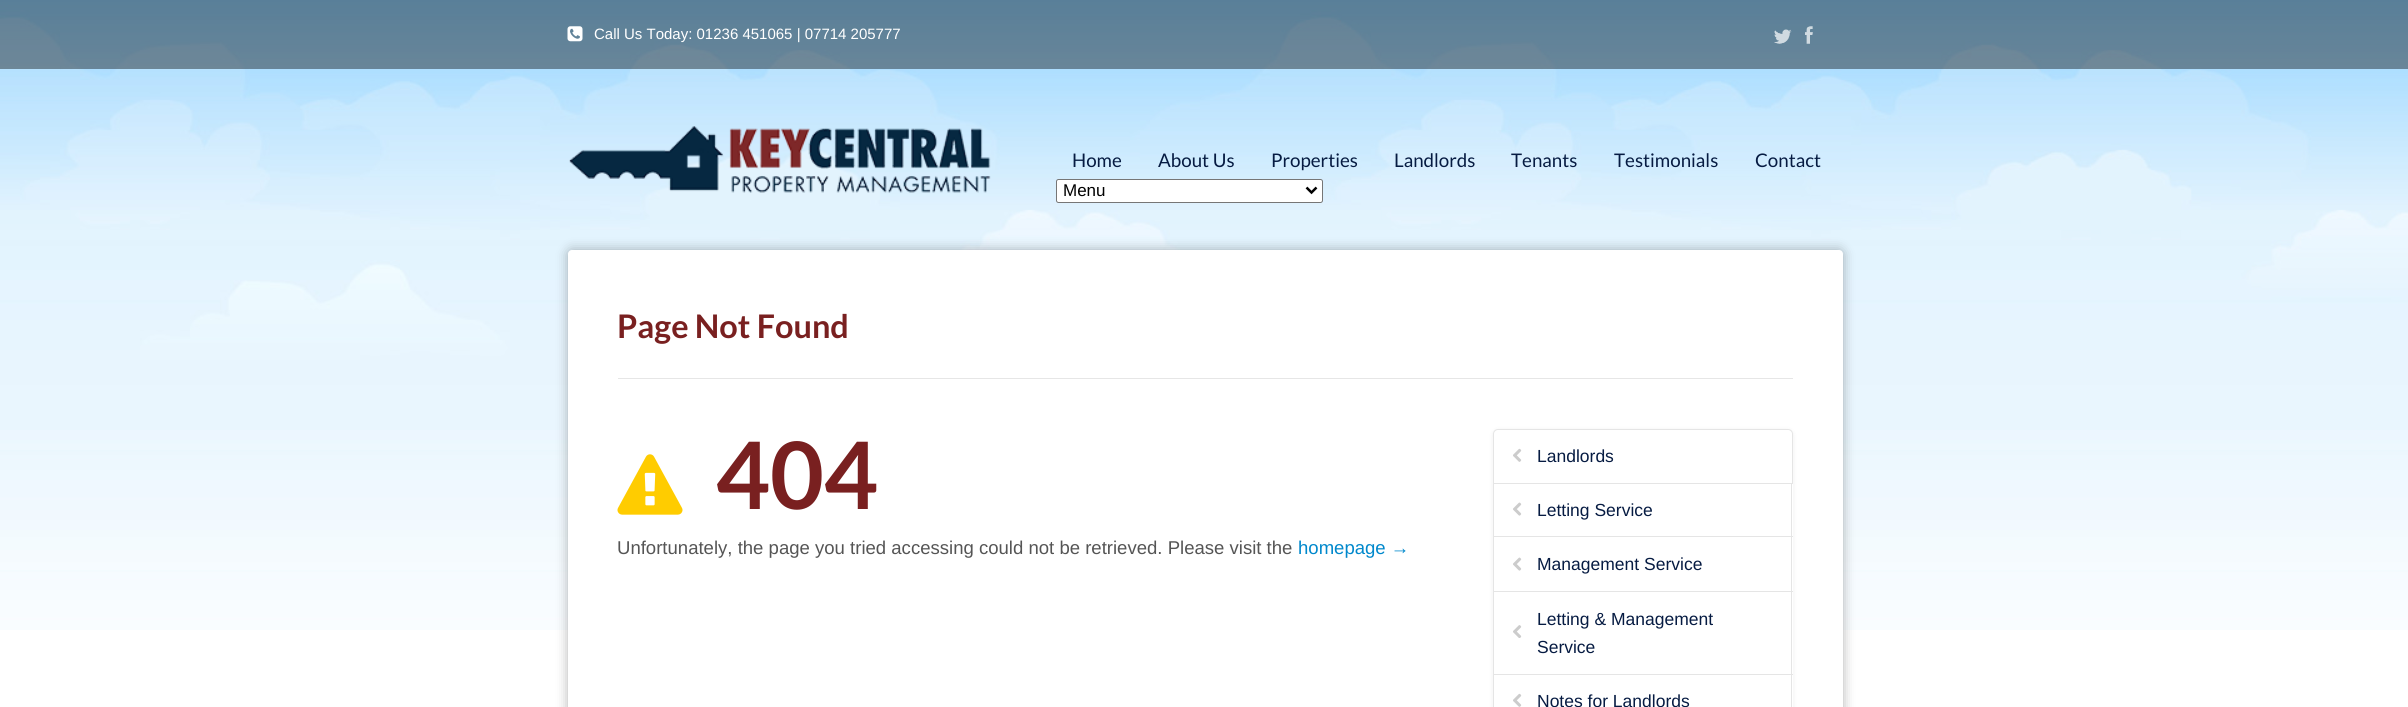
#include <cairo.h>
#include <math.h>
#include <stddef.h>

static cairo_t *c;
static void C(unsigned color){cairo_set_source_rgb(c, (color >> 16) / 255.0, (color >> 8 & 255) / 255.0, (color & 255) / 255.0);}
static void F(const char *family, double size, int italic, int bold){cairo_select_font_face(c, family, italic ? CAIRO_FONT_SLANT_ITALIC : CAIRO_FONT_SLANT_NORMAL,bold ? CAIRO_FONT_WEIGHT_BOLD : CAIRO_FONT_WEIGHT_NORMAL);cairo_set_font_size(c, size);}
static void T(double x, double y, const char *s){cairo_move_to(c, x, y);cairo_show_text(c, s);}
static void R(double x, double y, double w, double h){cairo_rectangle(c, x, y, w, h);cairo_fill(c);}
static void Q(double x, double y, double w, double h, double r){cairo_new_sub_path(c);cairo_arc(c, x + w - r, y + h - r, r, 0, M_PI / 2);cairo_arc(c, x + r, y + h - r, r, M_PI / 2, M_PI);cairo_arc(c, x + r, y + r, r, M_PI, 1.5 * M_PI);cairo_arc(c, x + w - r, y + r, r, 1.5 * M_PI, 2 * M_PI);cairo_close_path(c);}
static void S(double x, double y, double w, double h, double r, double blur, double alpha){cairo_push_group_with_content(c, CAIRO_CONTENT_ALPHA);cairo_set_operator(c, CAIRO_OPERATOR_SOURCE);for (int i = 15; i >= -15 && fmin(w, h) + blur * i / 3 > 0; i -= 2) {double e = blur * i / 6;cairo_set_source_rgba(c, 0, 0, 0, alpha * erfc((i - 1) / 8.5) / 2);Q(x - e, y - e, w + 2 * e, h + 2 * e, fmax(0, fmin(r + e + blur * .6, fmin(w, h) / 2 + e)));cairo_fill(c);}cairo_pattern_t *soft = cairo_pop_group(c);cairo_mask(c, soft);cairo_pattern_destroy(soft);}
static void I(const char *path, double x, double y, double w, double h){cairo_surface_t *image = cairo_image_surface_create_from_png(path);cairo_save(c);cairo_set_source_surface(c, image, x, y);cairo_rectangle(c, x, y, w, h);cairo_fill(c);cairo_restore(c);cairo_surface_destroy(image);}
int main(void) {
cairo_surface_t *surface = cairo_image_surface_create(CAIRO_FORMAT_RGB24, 2408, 707);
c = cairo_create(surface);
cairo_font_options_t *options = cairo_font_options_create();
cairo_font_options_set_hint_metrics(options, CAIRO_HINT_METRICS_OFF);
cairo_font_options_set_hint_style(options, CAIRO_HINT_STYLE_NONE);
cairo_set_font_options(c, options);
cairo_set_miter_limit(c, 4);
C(0xffffff);
cairo_paint(c);
I("1.png",0,0,2408,630);
cairo_set_source_rgba(c,0,0,0,0.4);
R(0,0,2408,69);
I("2.png",567,26,16,16);
F("Liberation Sans",15,0,0);
C(0xffffff);
T(594,39,"Call Us Today: 01236 451065 | 07714 205777");
I("3.png",1774,29,18,15);
I("4.png",1805,26,8,18);
I("5.png",569,126,422,67);
F("Lato",18.75,0,0);
C(0x061b42);
T(1072,167,"Home");
T(1158,167,"About Us");
T(1271,167,"Properties");
T(1394,167,"Landlords");
T(1511,167,"Tenants");
T(1614,167,"Testimonials");
T(1755,167,"Contact");
C(0xffffff);
Q(1056.5,179.5,266,23,2);
cairo_fill_preserve(c);
C(0x767676);
cairo_set_line_width(c,1);
cairo_stroke(c);
cairo_new_path(c);
cairo_move_to(c,1306.5,187.5);
cairo_line_to(c,1311.5,192.5);
cairo_line_to(c,1316.5,187.5);
C(0x000000);
cairo_set_line_width(c,2.5);
cairo_stroke(c);
F("Liberation Sans",17,0,0);
T(1063,196,"Menu");
C(0x000000);
S(568,250,1275,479,4,6,.3);
C(0xffffff);
Q(568,250,1275,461,4);
cairo_fill(c);
C(0xe6e6e6);
R(618,378,1175,1);
F("Lato",32.5,0,1);
C(0x792020);
T(617,338,"Page Not Found");
I("6.png",617,454,66,61);
F("Lato",93,0,1);
T(716,509,"404");
F("Liberation Sans",18.55,0,0);
C(0x555555);
T(617,554,"Unfortunately, the page you tried accessing could not be retrieved. Please visit the");
C(0x0088cc);
T(1298,554,"homepage →");
C(0x000000);
S(1493,430,300,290,5,2.5,.07);
C(0xffffff);
cairo_new_path(c);
cairo_move_to(c,1498,429.5);
cairo_line_to(c,1788,429.5);
cairo_curve_to(c,1790.5,429.5,1792.5,431.5,1792.5,434);
cairo_line_to(c,1792.5,483.5);
cairo_line_to(c,1493.5,483.5);
cairo_line_to(c,1493.5,434);
cairo_curve_to(c,1493.5,431.5,1495.5,429.5,1498,429.5);
cairo_close_path(c);
cairo_fill_preserve(c);
C(0xe5e5e5);
cairo_set_line_width(c,1);
cairo_stroke(c);
I("7.png",1513,448,9,14);
F("Liberation Sans",17.5,0,0);
C(0x061b42);
T(1537,462,"Landlords");
C(0xffffff);
R(1494,484,299,190);
C(0xe5e5e5);
R(1791,484,1,191);
R(1493,536,300,1);
R(1493,484,1,54);
I("8.png",1513,502,9,14);
C(0x061b42);
T(1537,516,"Letting Service");
C(0xe5e5e5);
R(1493,591,300,1);
R(1493,538,1,55);
I("8.png",1513,557,9,14);
C(0x061b42);
T(1537,570,"Management Service");
C(0xe5e5e5);
R(1493,674,300,1);
R(1493,593,1,114);
C(0x061b42);
T(1537,625,"Letting & Management");
I("9.png",1513,625,9,13);
T(1537,653,"Service");
C(0xffffff);
R(1494,675,299,32);
C(0xe5e5e5);
R(1791,675,1,32);
I("7.png",1513,693,9,14);
C(0x061b42);
T(1537,707,"Notes for Landlords");
cairo_surface_write_to_png(surface, "o.png");
cairo_font_options_destroy(options);
cairo_destroy(c);
cairo_surface_destroy(surface);
return 0;
}
